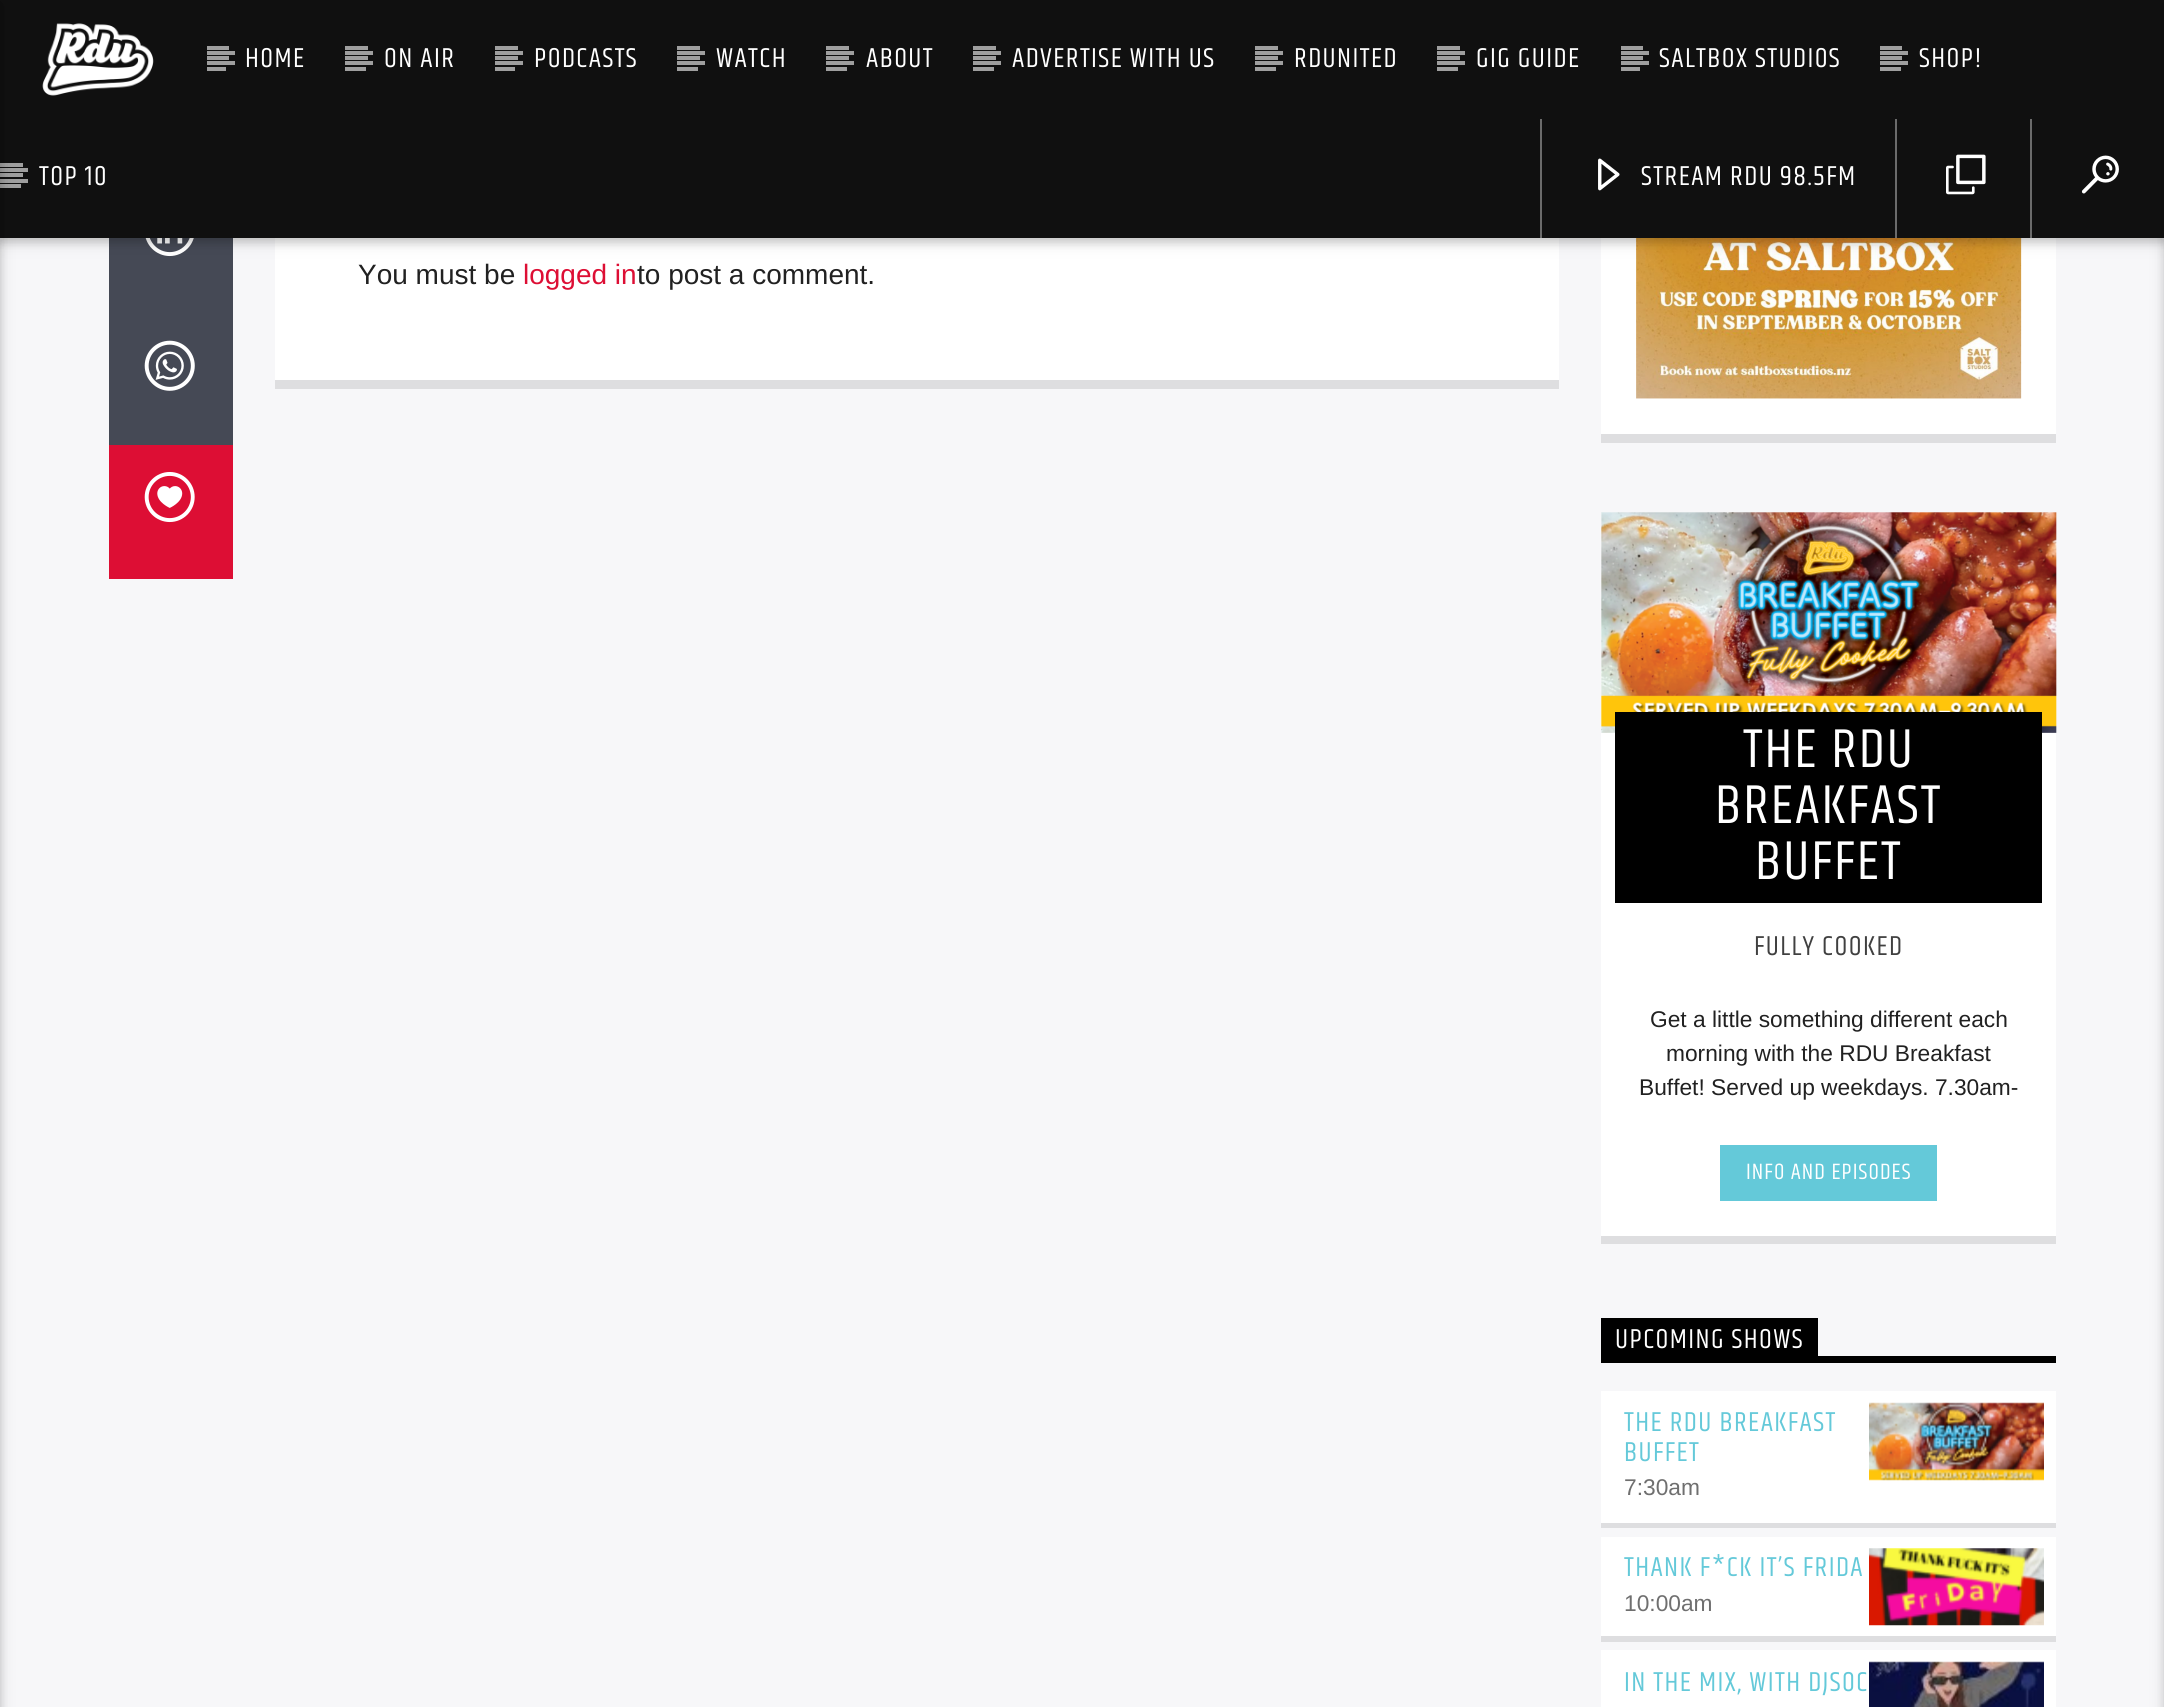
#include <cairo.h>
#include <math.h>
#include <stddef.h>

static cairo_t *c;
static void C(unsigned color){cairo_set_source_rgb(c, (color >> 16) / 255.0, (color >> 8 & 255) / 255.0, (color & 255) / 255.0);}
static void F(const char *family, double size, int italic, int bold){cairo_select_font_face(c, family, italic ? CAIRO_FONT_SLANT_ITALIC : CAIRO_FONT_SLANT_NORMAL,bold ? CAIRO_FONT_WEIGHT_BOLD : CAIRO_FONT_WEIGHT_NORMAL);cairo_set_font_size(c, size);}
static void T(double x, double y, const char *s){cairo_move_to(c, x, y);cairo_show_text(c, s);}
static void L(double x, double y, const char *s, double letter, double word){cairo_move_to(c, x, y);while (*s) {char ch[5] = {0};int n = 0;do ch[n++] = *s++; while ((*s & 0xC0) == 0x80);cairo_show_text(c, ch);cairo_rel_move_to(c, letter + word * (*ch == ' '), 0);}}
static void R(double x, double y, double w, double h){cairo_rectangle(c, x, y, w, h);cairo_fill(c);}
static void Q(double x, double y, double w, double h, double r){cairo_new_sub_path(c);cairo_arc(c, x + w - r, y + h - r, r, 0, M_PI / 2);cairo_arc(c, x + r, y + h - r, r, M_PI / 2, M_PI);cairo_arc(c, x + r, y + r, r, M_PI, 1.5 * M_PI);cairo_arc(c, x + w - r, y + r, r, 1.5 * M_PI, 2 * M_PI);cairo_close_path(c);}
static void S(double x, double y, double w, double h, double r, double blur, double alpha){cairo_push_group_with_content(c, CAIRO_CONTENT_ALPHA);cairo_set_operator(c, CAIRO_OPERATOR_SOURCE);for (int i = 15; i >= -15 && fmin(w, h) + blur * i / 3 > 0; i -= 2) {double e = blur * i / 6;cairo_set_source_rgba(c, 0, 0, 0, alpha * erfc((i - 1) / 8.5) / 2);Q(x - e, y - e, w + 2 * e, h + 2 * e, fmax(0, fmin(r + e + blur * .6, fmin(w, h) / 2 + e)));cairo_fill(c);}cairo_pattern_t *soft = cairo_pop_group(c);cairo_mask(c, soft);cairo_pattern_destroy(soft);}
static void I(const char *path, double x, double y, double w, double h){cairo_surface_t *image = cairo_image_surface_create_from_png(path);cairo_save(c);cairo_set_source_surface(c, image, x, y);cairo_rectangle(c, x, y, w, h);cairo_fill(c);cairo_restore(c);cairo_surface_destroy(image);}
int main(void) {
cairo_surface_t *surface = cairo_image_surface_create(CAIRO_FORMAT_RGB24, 2164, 1707);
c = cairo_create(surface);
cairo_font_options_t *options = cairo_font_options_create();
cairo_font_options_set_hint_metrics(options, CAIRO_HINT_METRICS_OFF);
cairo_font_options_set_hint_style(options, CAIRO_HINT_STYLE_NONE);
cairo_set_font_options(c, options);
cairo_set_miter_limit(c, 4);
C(0xf7f7f9);
cairo_paint(c);
C(0x454955);
R(109,238,124,207);
I("5.png",145,238,49,19);
C(0xffffff);
R(275,238,1284,142);
R(1601,238,455,196);
I("8.png",1636,238,386,161);
C(0x000000);
S(0,4,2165,238,0,9,.12);
S(0,4,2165,238,0,4.5,.16);
C(0x101010);
R(0,0,2164,238);
C(0x9f9f9f);
R(0,184,21,4);
R(0,163,23,4);
R(0,173,23,4);
R(0,168,28,4);
R(0,179,28,4);
C(0x000000);
S(-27,4,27,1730,0,9,.12);
S(-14,4,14,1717,0,4.5,.16);
I("1.png",42,23,112,73);
C(0x9f9f9f);
R(207,46,22,4);
R(207,56,22,4);
F("Khand",28,0,0);
C(0xffffff);
L(245,67,"HOME",1.4,0);
C(0x9f9f9f);
R(207,51,28,4);
R(207,61,28,4);
R(207,67,19,4);
R(345,46,23,4);
R(345,56,23,4);
C(0xffffff);
L(384,67,"ON AIR",1.4,0);
C(0x9f9f9f);
R(345,51,28,4);
R(345,61,28,4);
R(345,67,21,4);
R(495,46,23,4);
R(495,56,23,4);
C(0xffffff);
L(534,67,"PODCASTS",1.4,0);
C(0x9f9f9f);
R(495,51,28,4);
R(495,61,28,4);
R(495,67,20,4);
R(677,46,23,4);
R(677,56,23,4);
C(0xffffff);
L(716,67,"WATCH",1.4,0);
C(0x9f9f9f);
R(677,51,28,4);
R(677,61,28,4);
R(677,67,21,4);
R(826,46,23,4);
R(826,56,23,4);
C(0xffffff);
L(866,67,"ABOUT",1.4,0);
C(0x9f9f9f);
R(826,51,28,4);
R(826,61,28,4);
R(826,67,21,4);
R(973,46,23,4);
R(973,56,23,4);
C(0xffffff);
L(1012,67,"ADVERTISE WITH US",1.4,0);
C(0x9f9f9f);
R(973,51,28,4);
R(973,61,28,4);
R(973,67,21,4);
R(1255,46,23,4);
R(1255,56,23,4);
C(0xffffff);
L(1294,67,"RDUNITED",1.4,0);
C(0x9f9f9f);
R(1255,51,28,4);
R(1255,61,28,4);
R(1255,67,21,4);
R(1437,46,23,4);
R(1437,56,23,4);
C(0xffffff);
L(1476,67,"GIG GUIDE",1.4,0);
C(0x9f9f9f);
R(1437,51,28,4);
R(1437,61,28,4);
R(1437,67,21,4);
R(1621,46,22,4);
R(1621,56,22,4);
C(0xffffff);
L(1659,67,"SALTBOX STUDIOS",1.4,0);
C(0x9f9f9f);
R(1621,51,28,4);
R(1621,61,28,4);
R(1621,67,19,4);
R(1880,46,22,4);
R(1880,56,22,4);
C(0xffffff);
L(1919,67,"SHOP!",1.4,0);
C(0x9f9f9f);
R(1880,51,28,4);
R(1880,61,28,4);
R(1880,67,21,4);
C(0xffffff);
L(39,185,"TOP 10",1.4,0);
C(0x6b6b6b);
R(1540,119,2,119);
I("2.png",1598,158,22,33);
C(0xffffff);
L(1641,185,"STREAM RDU 98.5FM",1.4,0);
C(0x6b6b6b);
R(1895,119,2,119);
I("3.png",1946,154,40,41);
R(2030,119,2,119);
I("4.png",2081,155,38,39);
C(0x000000);
S(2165,4,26,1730,0,9,.12);
S(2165,4,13,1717,0,4.5,.16);
I("6.png",144,340,51,51);
C(0xdd0e34);
R(109,445,124,134);
I("7.png",144,472,51,51);
C(0xdedee0);
R(275,380,1284,9);
F("Liberation Sans",28,0,0);
C(0x212121);
T(358,284,"You must be");
C(0xdd0e34);
T(523,284,"logged in");
C(0x212121);
T(637,284,"to post a comment.");
C(0xdedee0);
cairo_new_path(c);
cairo_move_to(c,1601,-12);
cairo_line_to(c,1601,443);
cairo_line_to(c,2056,443);
cairo_line_to(c,2056,434);
cairo_line_to(c,1601,434);
cairo_close_path(c);
cairo_fill(c);
cairo_new_path(c);
cairo_move_to(c,1601,522);
cairo_line_to(c,1601,1244);
cairo_line_to(c,2056,1244);
cairo_line_to(c,2056,1236);
cairo_line_to(c,1601,1236);
cairo_close_path(c);
cairo_fill(c);
C(0xffffff);
R(1601,513,455,723);
I("9.png",1601,512,456,221);
C(0x000000);
R(1615,712,427,191);
F("Khand",56,0,0);
C(0xffffff);
L(1743,767,"THE RDU",2,0);
L(1715,823,"BREAKFAST",2,0);
L(1755,879,"BUFFET",2,0);
F("Khand",28,0,0);
C(0x404040);
L(1754,955,"FULLY COOKED",1.4,0);
F("Liberation Sans",22.75,0,0);
C(0x212121);
T(1650,1027,"Get a little something different each");
T(1666,1061,"morning with the RDU Breakfast");
T(1639,1095,"Buffet! Served up weekdays. 7.30am-");
C(0x64c9d9);
R(1720,1145,217,56);
F("Khand",22.75,0,0);
C(0xffffff);
L(1746,1179,"INFO AND EPISODES",1.1,0);
C(0x000000);
R(1818,1356,238,7);
R(1601,1318,217,45);
F("Khand",28,0,0);
C(0xffffff);
L(1615,1348,"UPCOMING SHOWS",1.4,0);
C(0xdedee0);
cairo_new_path(c);
cairo_move_to(c,1601,1397);
cairo_line_to(c,1601,1528);
cairo_line_to(c,2056,1528);
cairo_line_to(c,2056,1522);
cairo_line_to(c,1601,1522);
cairo_close_path(c);
cairo_fill(c);
C(0xffffff);
R(1601,1391,455,132);
C(0x64c9d9);
L(1624,1431,"THE RDU BREAKFAST",1.4,0);
L(1624,1461,"BUFFET",1.4,0);
I("10.png",1869,1402,175,79);
F("Liberation Sans",22.75,0,0);
C(0x6f6f6f);
T(1624,1495,"7:30am");
C(0xdedee0);
cairo_new_path(c);
cairo_move_to(c,1601,1542);
cairo_line_to(c,1601,1642);
cairo_line_to(c,2056,1642);
cairo_line_to(c,2056,1636);
cairo_line_to(c,1601,1636);
cairo_close_path(c);
cairo_fill(c);
C(0xffffff);
R(1601,1537,455,99);
F("Khand",28,0,0);
C(0x64c9d9);
L(1624,1576,"THANK F*CK IT’S FRIDA",1.4,0);
I("11.png",1869,1548,175,78);
F("Liberation Sans",22.75,0,0);
C(0x6f6f6f);
T(1624,1611,"10:00am");
C(0xffffff);
R(1601,1650,455,57);
F("Khand",28,0,0);
C(0x64c9d9);
L(1624,1691,"IN THE MIX, WITH DJSOC",1.4,0);
I("12.png",1869,1661,175,46);
cairo_surface_write_to_png(surface, "o.png");
cairo_font_options_destroy(options);
cairo_destroy(c);
cairo_surface_destroy(surface);
return 0;
}
